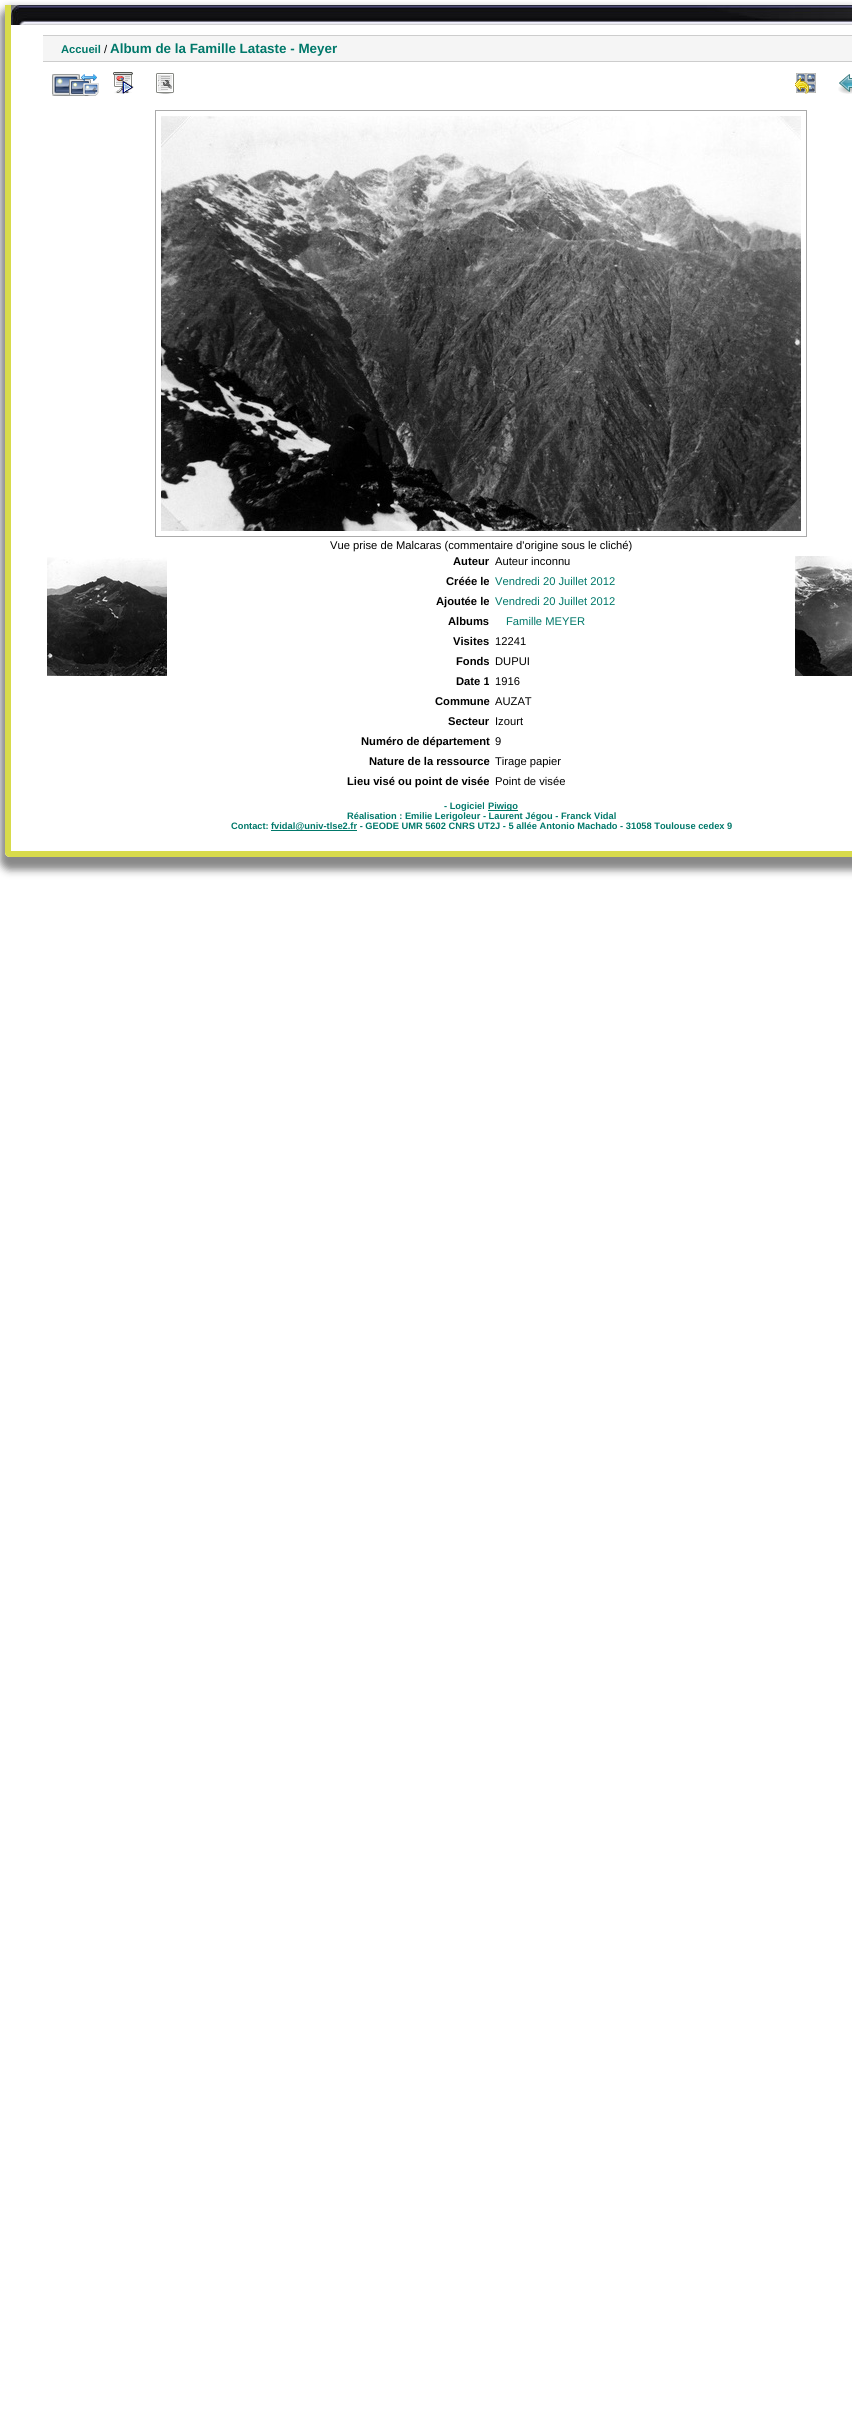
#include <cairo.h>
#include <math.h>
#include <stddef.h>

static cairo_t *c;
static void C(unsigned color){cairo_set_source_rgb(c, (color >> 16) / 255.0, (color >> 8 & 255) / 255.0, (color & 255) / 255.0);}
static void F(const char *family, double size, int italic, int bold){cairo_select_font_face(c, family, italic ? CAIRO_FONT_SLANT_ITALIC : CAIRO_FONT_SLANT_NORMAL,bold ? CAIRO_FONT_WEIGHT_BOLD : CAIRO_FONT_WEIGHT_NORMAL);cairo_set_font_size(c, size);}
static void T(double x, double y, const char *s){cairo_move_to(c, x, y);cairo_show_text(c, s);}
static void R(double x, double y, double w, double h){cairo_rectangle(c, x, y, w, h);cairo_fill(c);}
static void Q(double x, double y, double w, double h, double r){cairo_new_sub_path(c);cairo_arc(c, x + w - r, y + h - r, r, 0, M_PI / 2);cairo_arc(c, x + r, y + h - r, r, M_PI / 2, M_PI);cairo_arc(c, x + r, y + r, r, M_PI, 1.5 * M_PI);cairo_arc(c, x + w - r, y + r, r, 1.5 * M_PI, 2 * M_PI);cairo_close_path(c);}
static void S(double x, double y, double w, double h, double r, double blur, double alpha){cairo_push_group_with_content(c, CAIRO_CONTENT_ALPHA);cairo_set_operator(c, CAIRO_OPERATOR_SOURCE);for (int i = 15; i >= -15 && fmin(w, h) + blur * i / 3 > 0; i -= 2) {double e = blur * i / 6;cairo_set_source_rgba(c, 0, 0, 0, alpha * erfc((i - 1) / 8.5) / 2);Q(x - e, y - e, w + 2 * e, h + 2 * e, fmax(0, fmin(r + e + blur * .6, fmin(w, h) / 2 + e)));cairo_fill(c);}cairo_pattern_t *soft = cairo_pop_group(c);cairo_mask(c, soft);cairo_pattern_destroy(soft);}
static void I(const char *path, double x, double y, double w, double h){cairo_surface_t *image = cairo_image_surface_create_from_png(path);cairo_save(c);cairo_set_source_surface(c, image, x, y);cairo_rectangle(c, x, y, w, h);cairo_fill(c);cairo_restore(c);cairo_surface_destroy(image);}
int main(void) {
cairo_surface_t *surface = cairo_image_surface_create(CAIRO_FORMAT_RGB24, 852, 2430);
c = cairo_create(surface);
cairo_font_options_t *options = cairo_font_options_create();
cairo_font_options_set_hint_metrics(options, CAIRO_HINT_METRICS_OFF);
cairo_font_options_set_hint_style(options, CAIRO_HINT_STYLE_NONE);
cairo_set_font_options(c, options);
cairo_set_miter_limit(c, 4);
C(0xffffff);
cairo_paint(c);
cairo_save(c);
cairo_set_fill_rule(c,CAIRO_FILL_RULE_EVEN_ODD);
cairo_new_path(c);
cairo_move_to(c,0,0);
cairo_line_to(c,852,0);
cairo_line_to(c,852,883);
cairo_line_to(c,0,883);
cairo_close_path(c);
cairo_move_to(c,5,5);
cairo_line_to(c,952,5);
cairo_curve_to(c,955,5,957,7,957,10);
cairo_line_to(c,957,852);
cairo_curve_to(c,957,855,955,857,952,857);
cairo_line_to(c,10,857);
cairo_curve_to(c,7,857,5,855,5,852);
cairo_close_path(c);
cairo_clip(c);
C(0x888888);
S(0,8,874,862,10,4,1);
cairo_restore(c);
C(0xd8db4b);
cairo_set_fill_rule(c,CAIRO_FILL_RULE_EVEN_ODD);
cairo_new_path(c);
cairo_move_to(c,5,5);
cairo_line_to(c,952,5);
cairo_curve_to(c,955,5,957,7,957,10);
cairo_line_to(c,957,852);
cairo_curve_to(c,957,855,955,857,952,857);
cairo_line_to(c,10,857);
cairo_curve_to(c,7,857,5,855,5,852);
cairo_close_path(c);
cairo_move_to(c,11,5);
cairo_line_to(c,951,5);
cairo_line_to(c,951,851);
cairo_line_to(c,11,851);
cairo_close_path(c);
cairo_fill(c);
I("1.png",11,5,841,20);
C(0xf5f5f5);
R(43,36,809,25);
C(0xcdcdcd);
R(43,35,809,1);
R(43,61,809,1);
F("Liberation Sans",11.2,0,1);
C(0x00786a);
T(61,53,"Accueil");
F("Liberation Sans",11.2,0,0);
C(0x000000);
T(104,53,"/");
F("Liberation Sans",13.4,0,1);
C(0x00786a);
T(110,53,"Album de la Famille Lataste - Meyer");
I("2.png",52,74,47,22);
I("3.png",113,72,21,22);
I("4.png",156,73,18,21);
I("5.png",795,73,21,21);
I("6.png",838,74,14,20);
cairo_rectangle(c,155.5,110.5,651,426);
C(0xaaaaaa);
cairo_set_line_width(c,1);
cairo_stroke(c);
I("7.png",161,116,640,415);
F("Liberation Sans",11.2,0,0);
C(0x000000);
T(330,549,"Vue prise de Malcaras (commentaire d'origine sous le cliché)");
I("8.png",47,557,120,119);
I("9.png",795,556,57,120);
F("Liberation Sans",11.2,0,1);
T(453,565,"Auteur");
F("Liberation Sans",11.2,0,0);
T(495,565,"Auteur inconnu");
F("Liberation Sans",11.2,0,1);
T(446,585,"Créée le");
F("Liberation Sans",11.2,0,0);
C(0x00786a);
T(495,585,"Vendredi 20 Juillet 2012");
F("Liberation Sans",11.2,0,1);
C(0x000000);
T(436,605,"Ajoutée le");
F("Liberation Sans",11.2,0,0);
C(0x00786a);
T(495,605,"Vendredi 20 Juillet 2012");
F("Liberation Sans",11.2,0,1);
C(0x000000);
T(448,625,"Albums");
F("Liberation Sans",11.2,0,0);
C(0x00786a);
T(506,625,"Famille MEYER");
F("Liberation Sans",11.2,0,1);
C(0x000000);
T(453,645,"Visites");
F("Liberation Sans",11.2,0,0);
T(495,645,"12241");
F("Liberation Sans",11.2,0,1);
T(456,665,"Fonds");
F("Liberation Sans",11.2,0,0);
T(495,665,"DUPUI");
F("Liberation Sans",11.2,0,1);
T(456,685,"Date 1");
F("Liberation Sans",11.2,0,0);
T(495,685,"1916");
F("Liberation Sans",11.2,0,1);
T(435,705,"Commune");
F("Liberation Sans",11.2,0,0);
T(495,705,"AUZAT");
F("Liberation Sans",11.2,0,1);
T(448,725,"Secteur");
F("Liberation Sans",11.2,0,0);
T(495,725,"Izourt");
F("Liberation Sans",11.2,0,1);
T(361,745,"Numéro de département");
F("Liberation Sans",11.2,0,0);
T(495,745,"9");
F("Liberation Sans",11.2,0,1);
T(369,765,"Nature de la ressource");
F("Liberation Sans",11.2,0,0);
T(495,765,"Tirage papier");
F("Liberation Sans",11.2,0,1);
T(347,785,"Lieu visé ou point de visée");
F("Liberation Sans",11.2,0,0);
T(495,785,"Point de visée");
F("Liberation Sans",9.3,0,1);
C(0x00786a);
T(444,809,"- Logiciel");
R(488,810,30,1);
T(488,809,"Piwigo");
T(347,819,"Réalisation : Emilie Lerigoleur - Laurent Jégou - Franck Vidal");
T(231,829,"Contact:");
R(271,830,86,1);
T(271,829,"fvidal@univ-tlse2.fr - GEODE UMR 5602 CNRS UT2J - 5 allée Antonio Machado - 31058 Toulouse cedex 9");
cairo_surface_write_to_png(surface, "o.png");
cairo_font_options_destroy(options);
cairo_destroy(c);
cairo_surface_destroy(surface);
return 0;
}
